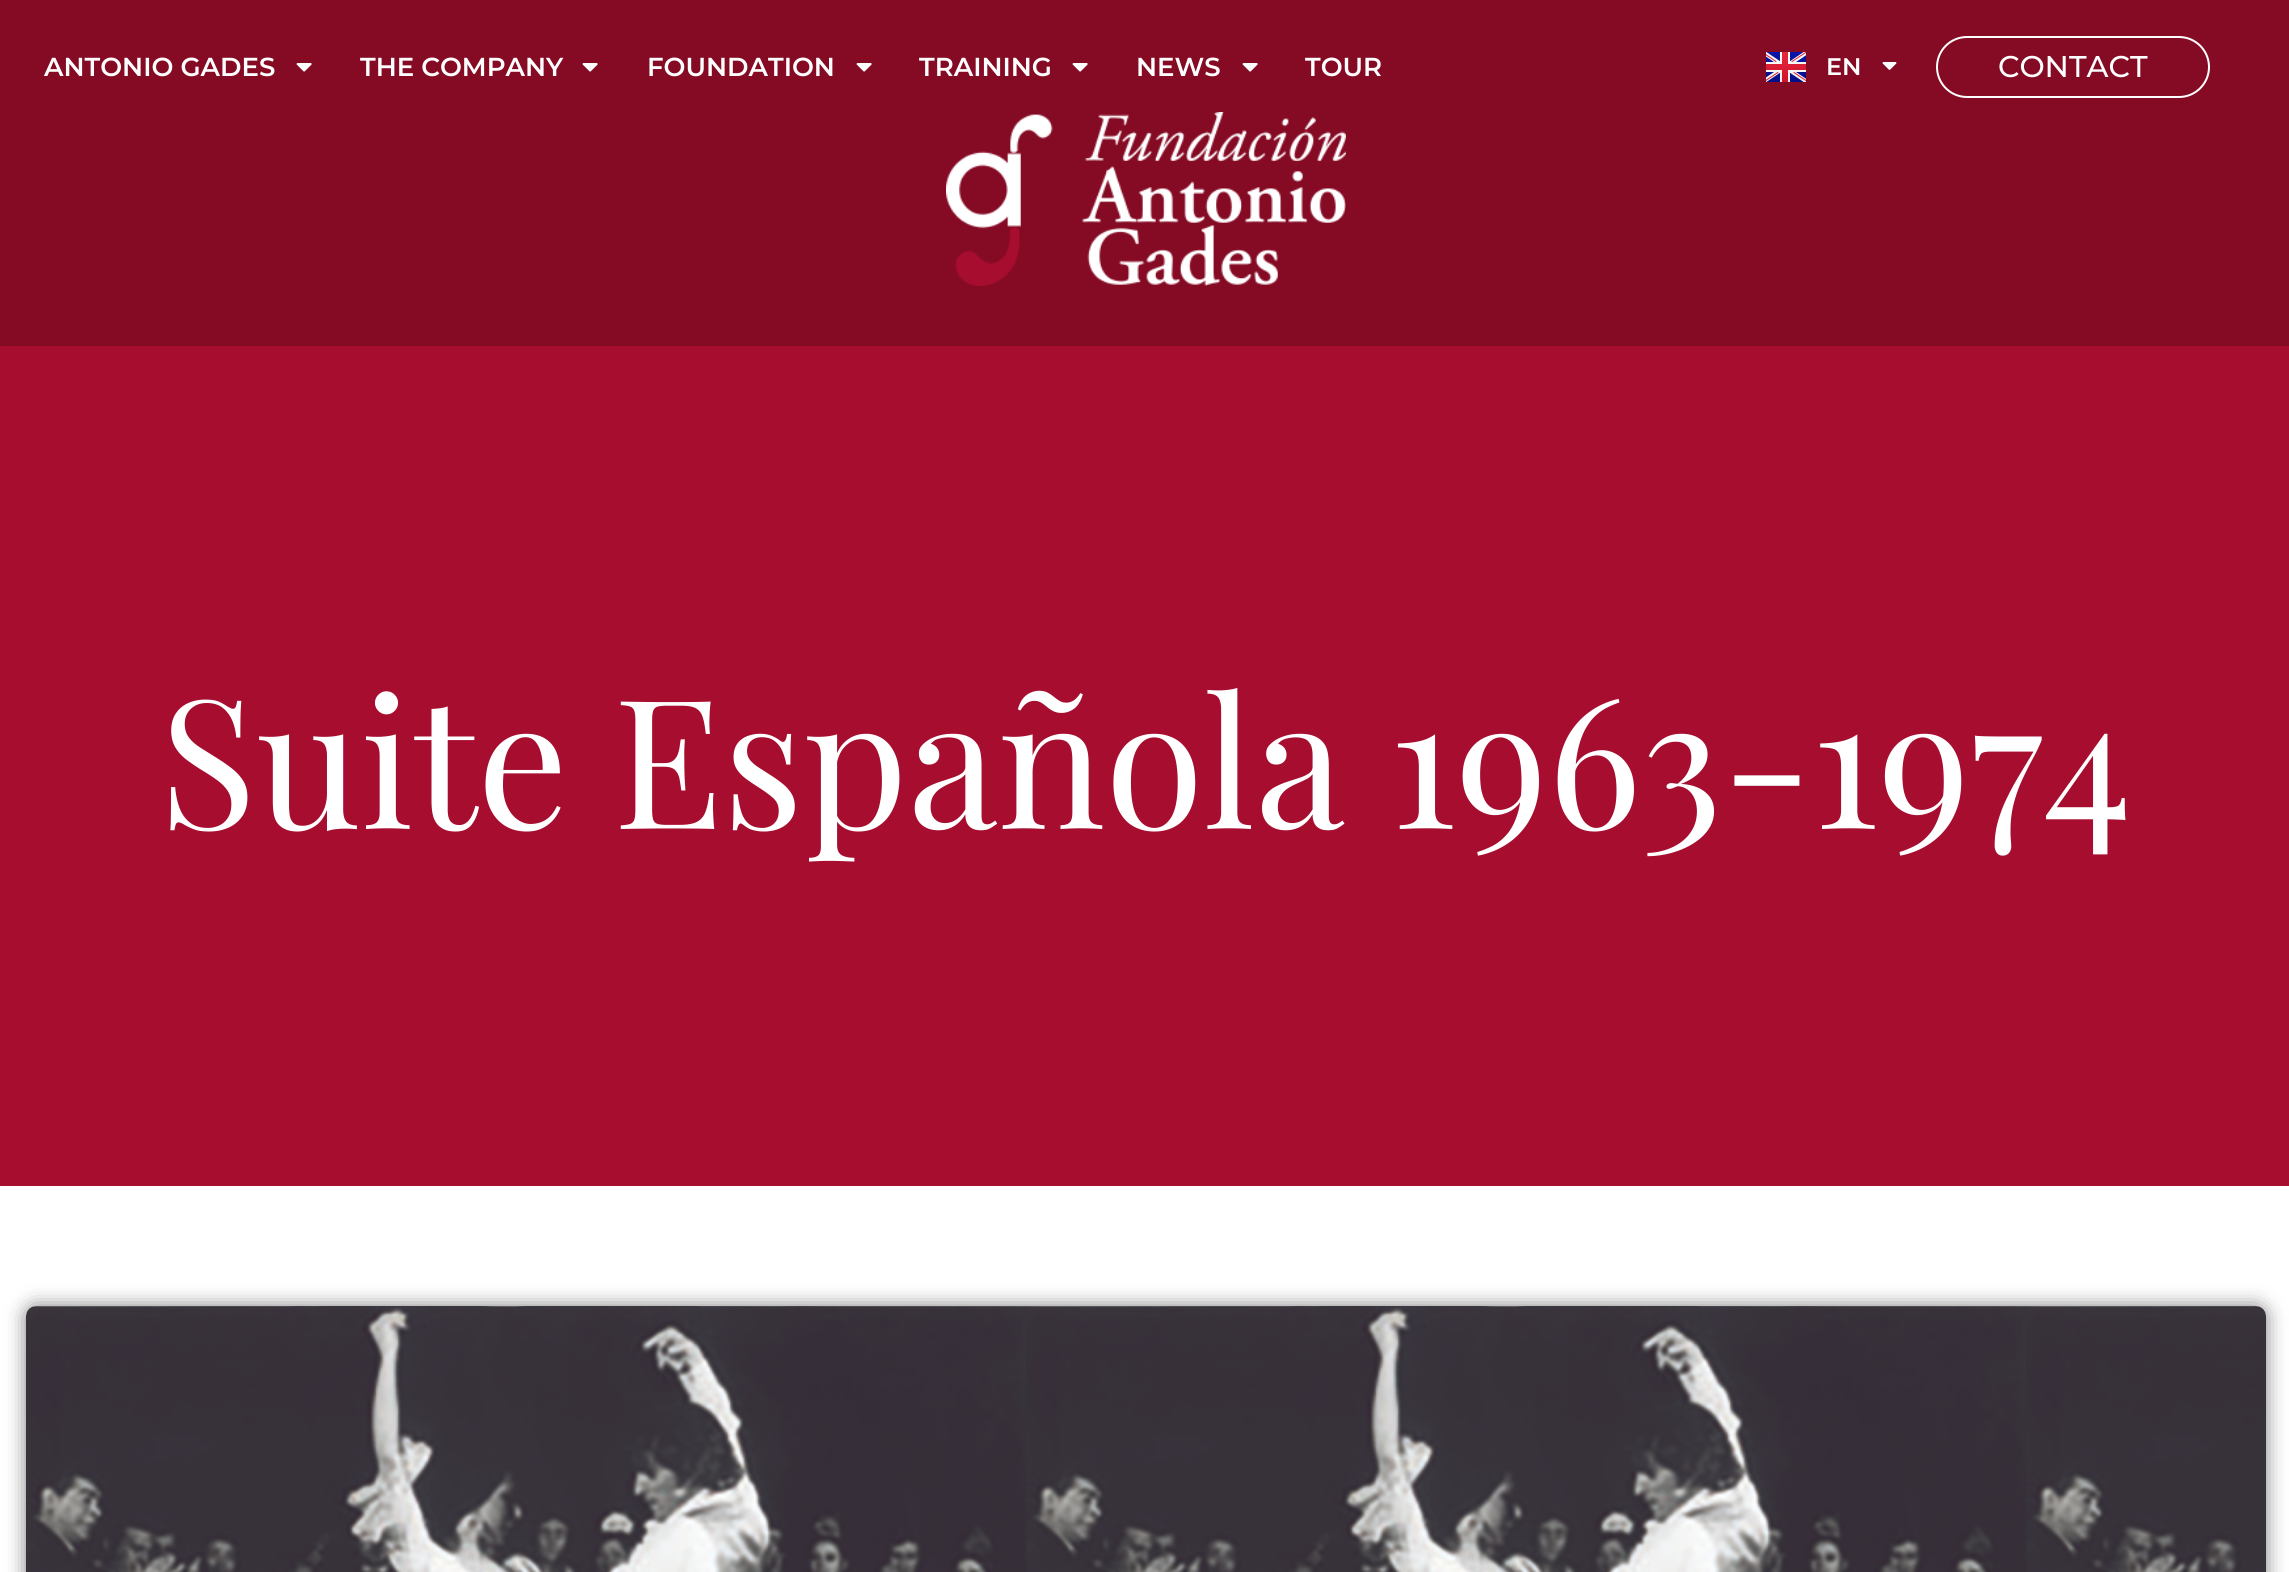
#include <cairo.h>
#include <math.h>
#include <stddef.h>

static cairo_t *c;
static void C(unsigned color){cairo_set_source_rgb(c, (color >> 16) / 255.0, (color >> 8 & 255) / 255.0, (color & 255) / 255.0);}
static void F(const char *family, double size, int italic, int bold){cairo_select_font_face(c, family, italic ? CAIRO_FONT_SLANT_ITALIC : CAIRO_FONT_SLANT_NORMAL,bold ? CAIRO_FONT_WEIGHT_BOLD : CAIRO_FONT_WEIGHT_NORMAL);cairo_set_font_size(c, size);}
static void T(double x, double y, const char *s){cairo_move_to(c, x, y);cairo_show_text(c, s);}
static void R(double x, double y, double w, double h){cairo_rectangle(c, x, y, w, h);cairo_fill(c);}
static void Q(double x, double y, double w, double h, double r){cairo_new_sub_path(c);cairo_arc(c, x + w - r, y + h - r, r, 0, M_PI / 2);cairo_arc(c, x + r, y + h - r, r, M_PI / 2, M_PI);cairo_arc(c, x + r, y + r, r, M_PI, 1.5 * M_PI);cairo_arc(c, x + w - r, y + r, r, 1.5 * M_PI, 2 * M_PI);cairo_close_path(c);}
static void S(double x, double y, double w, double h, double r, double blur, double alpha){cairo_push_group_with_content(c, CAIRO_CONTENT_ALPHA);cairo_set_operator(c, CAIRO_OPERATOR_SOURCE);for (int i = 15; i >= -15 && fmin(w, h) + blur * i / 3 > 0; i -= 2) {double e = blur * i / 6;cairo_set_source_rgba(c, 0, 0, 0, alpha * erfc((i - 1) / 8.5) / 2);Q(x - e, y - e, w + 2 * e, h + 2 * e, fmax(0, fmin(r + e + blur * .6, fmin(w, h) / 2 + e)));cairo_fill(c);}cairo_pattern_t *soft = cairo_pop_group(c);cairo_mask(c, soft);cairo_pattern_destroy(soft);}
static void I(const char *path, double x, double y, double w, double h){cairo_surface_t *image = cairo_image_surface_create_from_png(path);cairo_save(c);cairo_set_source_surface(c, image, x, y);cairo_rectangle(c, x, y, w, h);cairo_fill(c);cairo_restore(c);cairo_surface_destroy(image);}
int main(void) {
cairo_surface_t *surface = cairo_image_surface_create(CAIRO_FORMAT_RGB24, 2289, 1572);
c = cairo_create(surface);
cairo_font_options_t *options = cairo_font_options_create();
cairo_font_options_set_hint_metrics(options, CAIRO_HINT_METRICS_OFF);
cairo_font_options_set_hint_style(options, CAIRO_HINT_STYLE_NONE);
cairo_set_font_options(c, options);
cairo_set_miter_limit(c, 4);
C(0xffffff);
cairo_paint(c);
C(0x850a24);
R(0,0,2289,346);
F("Montserrat SemiBold",26,0,0);
C(0xffffff);
T(44,76,"ANTONIO GADES");
I("1.png",296,63,16,9);
T(360,76,"THE COMPANY");
I("1.png",582,63,16,9);
T(647,76,"FOUNDATION");
I("1.png",856,63,16,9);
T(919,76,"TRAINING");
I("1.png",1072,63,16,9);
T(1136,76,"NEWS");
I("1.png",1242,63,16,9);
T(1305,76,"TOUR");
I("2.png",1766,52,40,30);
F("Montserrat SemiBold",24,0,0);
T(1826,75,"EN");
I("3.png",1882,62,15,8);
Q(1937,37,272,60,30);
cairo_stroke(c);
F("Montserrat Medium",30,0,0);
T(1998,77,"CONTACT");
I("4.png",946,112,400,174);
C(0xa70d2e);
R(0,346,2289,840);
F("Playfair Display",180,0,0);
C(0xffffff);
T(159,829,"Suite Española 1963-1974");
C(0x000000);
S(26,1306,2240,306,10,10,.5);
I("5.png",26,1306,2240,266);
cairo_surface_write_to_png(surface, "o.png");
cairo_font_options_destroy(options);
cairo_destroy(c);
cairo_surface_destroy(surface);
return 0;
}
